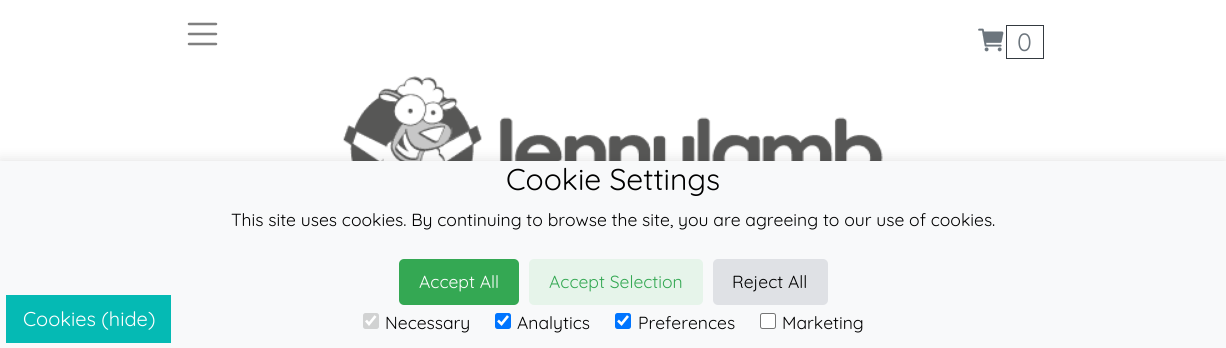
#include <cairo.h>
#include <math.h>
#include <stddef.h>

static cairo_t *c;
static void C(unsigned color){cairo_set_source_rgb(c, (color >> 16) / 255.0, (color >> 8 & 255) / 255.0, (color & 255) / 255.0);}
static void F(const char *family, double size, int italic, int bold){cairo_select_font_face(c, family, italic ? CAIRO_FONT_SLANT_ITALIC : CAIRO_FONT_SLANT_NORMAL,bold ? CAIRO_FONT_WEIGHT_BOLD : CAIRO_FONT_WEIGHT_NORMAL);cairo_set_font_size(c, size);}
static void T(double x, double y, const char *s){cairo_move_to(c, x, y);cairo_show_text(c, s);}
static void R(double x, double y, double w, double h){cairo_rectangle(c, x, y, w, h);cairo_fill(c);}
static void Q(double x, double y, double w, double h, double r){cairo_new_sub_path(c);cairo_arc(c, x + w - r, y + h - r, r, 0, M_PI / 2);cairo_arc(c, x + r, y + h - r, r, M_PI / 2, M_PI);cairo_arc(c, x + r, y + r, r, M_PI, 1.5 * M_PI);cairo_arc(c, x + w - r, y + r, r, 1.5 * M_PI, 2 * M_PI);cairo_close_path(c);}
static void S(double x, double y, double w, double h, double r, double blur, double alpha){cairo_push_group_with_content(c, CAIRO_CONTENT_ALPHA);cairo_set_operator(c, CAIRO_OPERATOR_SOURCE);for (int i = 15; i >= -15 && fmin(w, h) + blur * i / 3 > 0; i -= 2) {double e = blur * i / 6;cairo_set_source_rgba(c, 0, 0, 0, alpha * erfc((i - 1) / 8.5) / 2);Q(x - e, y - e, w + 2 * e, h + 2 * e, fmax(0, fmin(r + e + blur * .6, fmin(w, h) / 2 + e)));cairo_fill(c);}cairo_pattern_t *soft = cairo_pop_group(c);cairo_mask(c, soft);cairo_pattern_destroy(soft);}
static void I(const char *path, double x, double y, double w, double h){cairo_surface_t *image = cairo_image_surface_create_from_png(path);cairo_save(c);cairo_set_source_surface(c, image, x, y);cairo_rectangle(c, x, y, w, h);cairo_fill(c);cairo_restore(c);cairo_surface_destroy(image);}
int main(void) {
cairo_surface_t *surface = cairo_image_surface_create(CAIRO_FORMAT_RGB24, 1226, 348);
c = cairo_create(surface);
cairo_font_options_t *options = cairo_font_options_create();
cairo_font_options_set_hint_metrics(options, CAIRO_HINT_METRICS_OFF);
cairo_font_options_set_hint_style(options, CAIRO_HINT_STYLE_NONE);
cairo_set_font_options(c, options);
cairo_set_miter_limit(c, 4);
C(0xffffff);
cairo_paint(c);
cairo_new_path(c);
cairo_move_to(c,189,24);
cairo_line_to(c,216,24);
cairo_move_to(c,189,34);
cairo_line_to(c,216,34);
cairo_move_to(c,189,44);
cairo_line_to(c,216,44);
C(0x808080);
cairo_set_line_width(c,2.5);
cairo_set_line_cap(c,CAIRO_LINE_CAP_ROUND);
cairo_stroke(c);
I("1.png",978,28,26,24);
cairo_rectangle(c,1006.5,25.5,37,33);
C(0x343a40);
cairo_set_line_width(c,1);
cairo_set_line_cap(c,CAIRO_LINE_CAP_BUTT);
cairo_stroke(c);
F("Quicksand",25,0,0);
C(0x6c757d);
T(1017,51,"0");
I("2.png",343,76,540,85);
C(0x000000);
S(0,159,1226,187,0,6,.1);
C(0xf8f9fa);
R(0,161,1226,187);
C(0x05bab4);
R(6,295,165,48);
F("Quicksand",20,0,0);
C(0xffffff);
T(23,326,"Cookies (hide)");
F("Quicksand",30,0,0);
C(0x000000);
T(506,190,"Cookie Settings");
F("Quicksand",17.5,0,0);
T(231,226,"This site uses cookies. By continuing to browse the site, you are agreeing to our use of cookies.");
C(0x34a853);
Q(399,259,120,46,5);
cairo_fill(c);
C(0xffffff);
T(419,288,"Accept All");
C(0xe6f4ea);
Q(529,259,174,46,5);
cairo_fill(c);
C(0x34a853);
T(549,288,"Accept Selection");
C(0xdfe1e5);
Q(713,259,115,46,5);
cairo_fill(c);
C(0x000000);
T(732,288,"Reject All");
C(0xd1d2d2);
Q(363,313,16,16,2.5);
cairo_fill(c);
cairo_new_path(c);
cairo_move_to(c,366,320.5);
cairo_line_to(c,369,324);
cairo_line_to(c,375.5,316);
C(0xffffff);
cairo_set_line_width(c,2.6);
cairo_stroke(c);
C(0x000000);
T(385,329,"Necessary");
C(0x0075ff);
Q(495,313,16,16,2.5);
cairo_fill(c);
cairo_new_path(c);
cairo_move_to(c,498,320.5);
cairo_line_to(c,501.5,324);
cairo_line_to(c,508,316);
C(0xffffff);
cairo_stroke(c);
C(0x000000);
T(517,329,"Analytics");
C(0x0075ff);
Q(615,313,16,16,2.5);
cairo_fill(c);
cairo_new_path(c);
cairo_move_to(c,618,320.5);
cairo_line_to(c,621.5,324);
cairo_line_to(c,628,316);
C(0xffffff);
cairo_stroke(c);
C(0x000000);
T(638,329,"Preferences");
C(0xffffff);
Q(760.5,313.5,15,15,2);
cairo_fill_preserve(c);
C(0x767676);
cairo_set_line_width(c,1);
cairo_stroke(c);
C(0x000000);
T(782,329,"Marketing");
cairo_surface_write_to_png(surface, "o.png");
cairo_font_options_destroy(options);
cairo_destroy(c);
cairo_surface_destroy(surface);
return 0;
}
